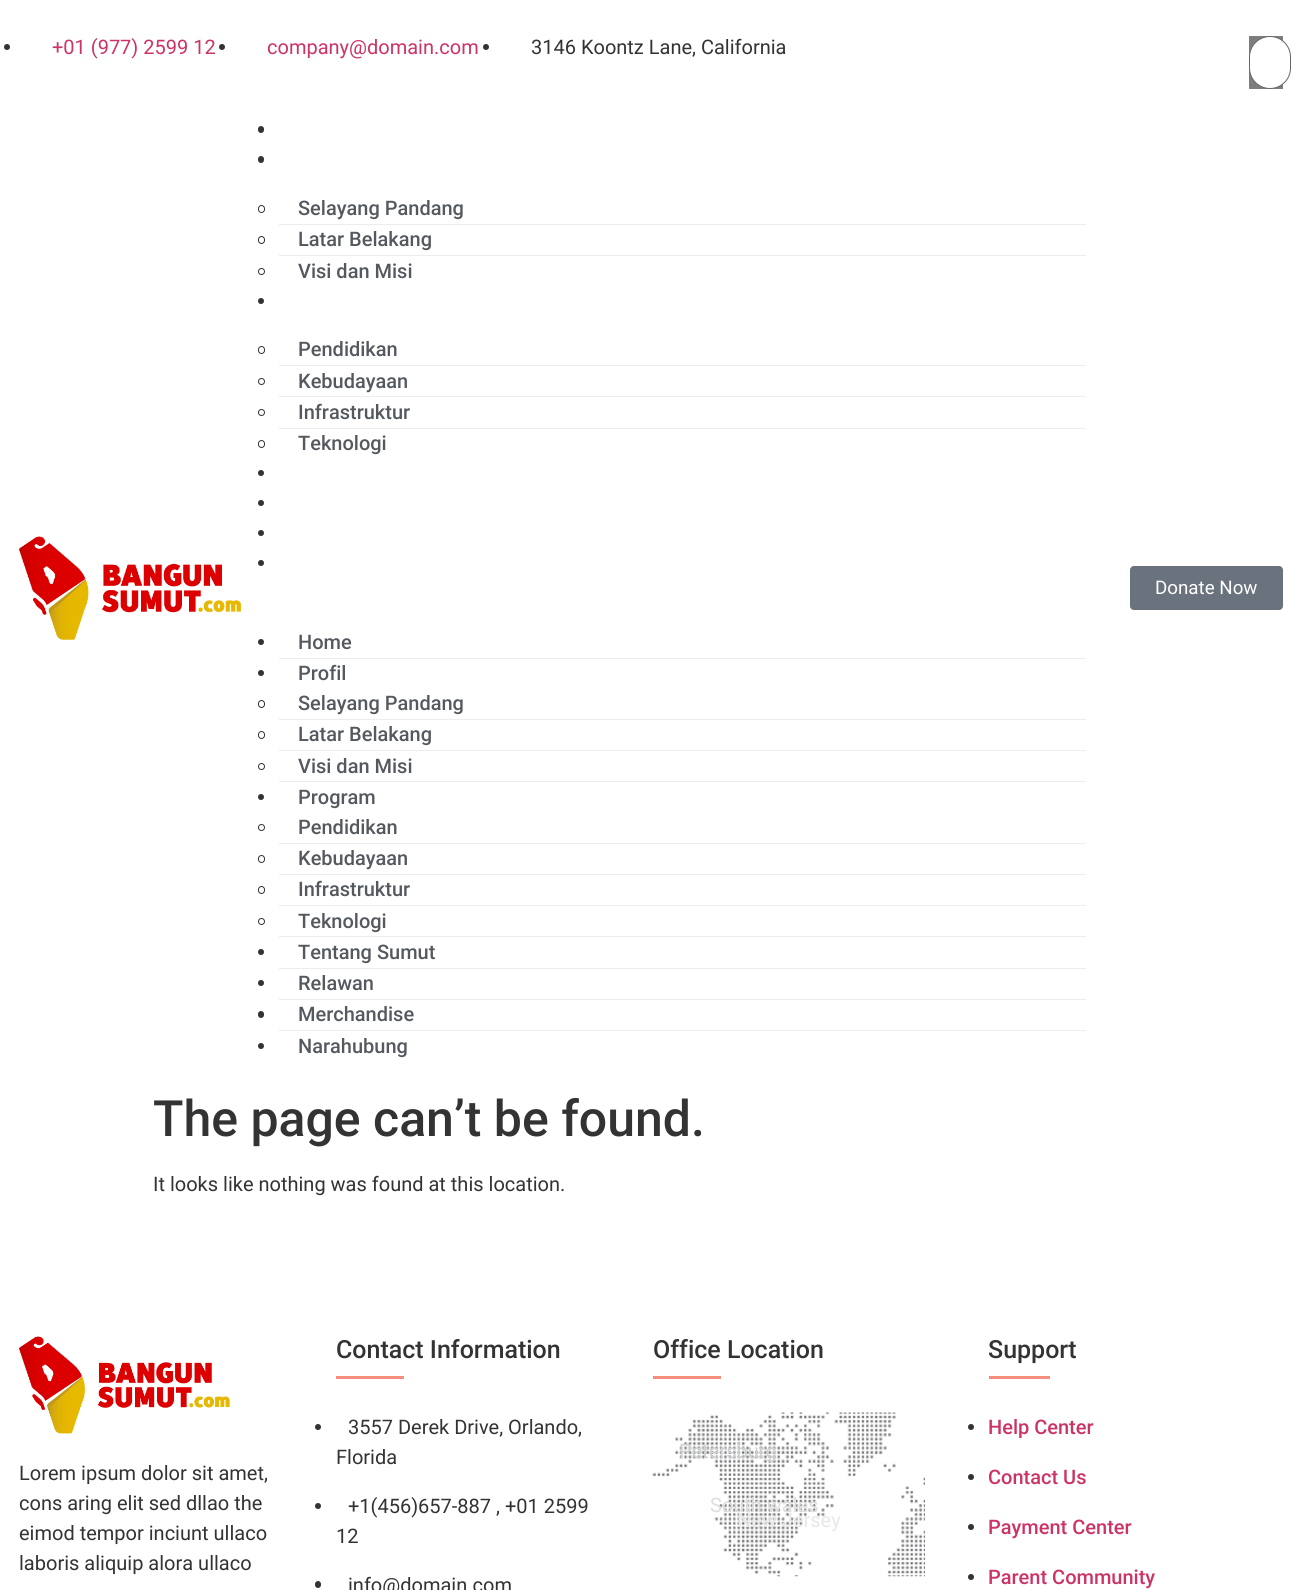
#include <cairo.h>
#include <math.h>
#include <stddef.h>

static cairo_t *c;
static void C(unsigned color){cairo_set_source_rgb(c, (color >> 16) / 255.0, (color >> 8 & 255) / 255.0, (color & 255) / 255.0);}
static void F(const char *family, double size, int italic, int bold){cairo_select_font_face(c, family, italic ? CAIRO_FONT_SLANT_ITALIC : CAIRO_FONT_SLANT_NORMAL,bold ? CAIRO_FONT_WEIGHT_BOLD : CAIRO_FONT_WEIGHT_NORMAL);cairo_set_font_size(c, size);}
static void T(double x, double y, const char *s){cairo_move_to(c, x, y);cairo_show_text(c, s);}
static void R(double x, double y, double w, double h){cairo_rectangle(c, x, y, w, h);cairo_fill(c);}
static void Q(double x, double y, double w, double h, double r){cairo_new_sub_path(c);cairo_arc(c, x + w - r, y + h - r, r, 0, M_PI / 2);cairo_arc(c, x + r, y + h - r, r, M_PI / 2, M_PI);cairo_arc(c, x + r, y + r, r, M_PI, 1.5 * M_PI);cairo_arc(c, x + w - r, y + r, r, 1.5 * M_PI, 2 * M_PI);cairo_close_path(c);}
static void I(const char *path, double x, double y, double w, double h){cairo_surface_t *image = cairo_image_surface_create_from_png(path);cairo_save(c);cairo_set_source_surface(c, image, x, y);cairo_rectangle(c, x, y, w, h);cairo_fill(c);cairo_restore(c);cairo_surface_destroy(image);}
int main(void) {
cairo_surface_t *surface = cairo_image_surface_create(CAIRO_FORMAT_RGB24, 1305, 1590);
c = cairo_create(surface);
cairo_font_options_t *options = cairo_font_options_create();
cairo_font_options_set_hint_metrics(options, CAIRO_HINT_METRICS_OFF);
cairo_font_options_set_hint_style(options, CAIRO_HINT_STYLE_NONE);
cairo_set_font_options(c, options);
cairo_set_miter_limit(c, 4);
C(0xffffff);
cairo_paint(c);
C(0x333333);
cairo_arc(c,7,47,3,0,2 * M_PI);
cairo_fill(c);
F("Roboto",20,0,0);
C(0xcc3366);
T(52,54,"+01 (977) 2599 12");
C(0x333333);
cairo_new_path(c);
cairo_arc(c,222,47,3,0,2 * M_PI);
cairo_fill(c);
C(0xcc3366);
T(267,54,"company@domain.com");
C(0x333333);
cairo_new_path(c);
cairo_arc(c,486,47,3,0,2 * M_PI);
cairo_fill(c);
T(531,54,"3146 Koontz Lane, California");
C(0x7d7d7d);
R(1249,36,34,53);
C(0xffffff);
Q(1249.5,36.5,41,52,20.5);
cairo_fill_preserve(c);
C(0x666666);
cairo_set_line_width(c,1);
cairo_stroke(c);
I("1.png",18,536,224,104);
C(0x333333);
Q(258,126,6,7,3);
cairo_fill(c);
Q(258,156,6,7,3);
cairo_fill(c);
C(0xededed);
R(279,224,807,1);
Q(258.5,205.5,6,7,3);
C(0x333333);
cairo_stroke(c);
F("Roboto Medium",20,0,0);
C(0x54595f);
T(298,215,"Selayang Pandang");
C(0xededed);
R(279,255,807,1);
Q(258.5,236.5,6,7,3);
C(0x333333);
cairo_stroke(c);
C(0x54595f);
T(298,246,"Latar Belakang");
cairo_new_path(c);
cairo_arc(c,261.5,271.5,3,0,2 * M_PI);
C(0x333333);
cairo_stroke(c);
C(0x54595f);
T(298,278,"Visi dan Misi");
C(0x333333);
cairo_new_path(c);
cairo_arc(c,261,301,3,0,2 * M_PI);
cairo_fill(c);
C(0xededed);
R(279,365,807,1);
Q(258.5,346.5,6,7,3);
C(0x333333);
cairo_stroke(c);
C(0x54595f);
T(298,356,"Pendidikan");
C(0xededed);
R(279,396,807,1);
cairo_new_path(c);
cairo_arc(c,261.5,381.5,3,0,2 * M_PI);
C(0x333333);
cairo_stroke(c);
C(0x54595f);
T(298,388,"Kebudayaan");
C(0xededed);
R(279,428,807,1);
cairo_new_path(c);
cairo_arc(c,261.5,412.5,3,0,2 * M_PI);
C(0x333333);
cairo_stroke(c);
C(0x54595f);
T(298,419,"Infrastruktur");
Q(258.5,440.5,6,7,3);
C(0x333333);
cairo_stroke(c);
C(0x54595f);
T(298,450,"Teknologi");
C(0x333333);
cairo_new_path(c);
cairo_arc(c,261,473,3,0,2 * M_PI);
cairo_fill(c);
cairo_arc(c,261,503,3,0,2 * M_PI);
cairo_fill(c);
cairo_arc(c,261,533,3,0,2 * M_PI);
cairo_fill(c);
cairo_arc(c,261,563,3,0,2 * M_PI);
cairo_fill(c);
C(0xededed);
R(279,658,807,1);
C(0x333333);
cairo_arc(c,261,642,3,0,2 * M_PI);
cairo_fill(c);
C(0x54595f);
T(298,649,"Home");
C(0xededed);
R(279,781,807,1);
C(0x333333);
cairo_new_path(c);
cairo_arc(c,261,673,3,0,2 * M_PI);
cairo_fill(c);
C(0x54595f);
T(298,680,"Profil");
C(0xededed);
R(279,719,807,1);
Q(258.5,700.5,6,7,3);
C(0x333333);
cairo_stroke(c);
C(0x54595f);
T(298,710,"Selayang Pandang");
C(0xededed);
R(279,750,807,1);
Q(258.5,731.5,6,7,3);
C(0x333333);
cairo_stroke(c);
C(0x54595f);
T(298,741,"Latar Belakang");
cairo_new_path(c);
cairo_arc(c,261.5,766.5,3,0,2 * M_PI);
C(0x333333);
cairo_stroke(c);
C(0x54595f);
T(298,773,"Visi dan Misi");
C(0xededed);
R(279,936,807,1);
C(0x333333);
cairo_new_path(c);
cairo_arc(c,261,797,3,0,2 * M_PI);
cairo_fill(c);
C(0x54595f);
T(298,804,"Program");
C(0xededed);
R(279,843,807,1);
cairo_new_path(c);
cairo_arc(c,261.5,827.5,3,0,2 * M_PI);
C(0x333333);
cairo_stroke(c);
C(0x54595f);
T(298,834,"Pendidikan");
C(0xededed);
R(279,874,807,1);
Q(258.5,855.5,6,7,3);
C(0x333333);
cairo_stroke(c);
C(0x54595f);
T(298,865,"Kebudayaan");
C(0xededed);
R(279,905,807,1);
Q(258.5,886.5,6,7,3);
C(0x333333);
cairo_stroke(c);
C(0x54595f);
T(298,896,"Infrastruktur");
cairo_new_path(c);
cairo_arc(c,261.5,921.5,3,0,2 * M_PI);
C(0x333333);
cairo_stroke(c);
C(0x54595f);
T(298,928,"Teknologi");
C(0xededed);
R(279,968,807,1);
C(0x333333);
cairo_new_path(c);
cairo_arc(c,261,952,3,0,2 * M_PI);
cairo_fill(c);
C(0x54595f);
T(298,959,"Tentang Sumut");
C(0xededed);
R(279,999,807,1);
C(0x333333);
cairo_new_path(c);
cairo_arc(c,261,983,3,0,2 * M_PI);
cairo_fill(c);
C(0x54595f);
T(298,990,"Relawan");
C(0xededed);
R(279,1030,807,1);
C(0x333333);
Q(258,1011,6,7,3);
cairo_fill(c);
C(0x54595f);
T(298,1021,"Merchandise");
C(0x333333);
cairo_new_path(c);
cairo_arc(c,261,1046,3,0,2 * M_PI);
cairo_fill(c);
C(0x54595f);
T(298,1053,"Narahubung");
C(0x69727d);
Q(1130,566,153,44,4);
cairo_fill(c);
F("Roboto",18.75,0,0);
C(0xffffff);
T(1155,594,"Donate Now");
F("Roboto Medium",50,0,0);
C(0x333333);
T(153,1136,"The page can’t be found.");
F("Roboto",20,0,0);
T(153,1191,"It looks like nothing was found at this location.");
I("2.png",18,1336,212,98);
T(19,1480,"Lorem ipsum dolor sit amet,");
T(19,1510,"cons aring elit sed dllao the");
T(19,1540,"eimod tempor inciunt ullaco");
T(19,1570,"laboris aliquip alora ullaco");
F("Roboto Medium",25,0,0);
T(336,1358,"Contact Information");
C(0xf58e7d);
R(336,1376,68,3);
C(0x333333);
cairo_new_path(c);
cairo_arc(c,318,1427,3,0,2 * M_PI);
cairo_fill(c);
F("Roboto",20,0,0);
T(348,1434,"3557 Derek Drive, Orlando,");
T(336,1464,"Florida");
cairo_new_path(c);
cairo_arc(c,318,1506,3,0,2 * M_PI);
cairo_fill(c);
T(348,1513,"+1(456)657-887 , +01 2599");
T(336,1543,"12");
Q(315,1581,6,7,3);
cairo_fill(c);
T(348,1592,"info@domain.com");
F("Roboto Medium",25,0,0);
T(653,1358,"Office Location");
C(0xf58e7d);
R(653,1376,68,3);
I("3.png",652,1412,273,165);
F("Roboto",20,0,0);
C(0xcfd0d1);
T(679,1458,"Petersburg");
C(0xddddde);
T(710,1512,"South wales");
C(0xe8e8e8);
T(737,1527,"New Jersey");
F("Roboto Medium",25,0,0);
C(0x333333);
T(988,1358,"Support");
C(0xf58e7d);
R(989,1376,61,3);
C(0x333333);
cairo_new_path(c);
cairo_arc(c,971,1427,3,0,2 * M_PI);
cairo_fill(c);
F("Roboto Medium",20,0,0);
C(0xcc3366);
T(988,1434,"Help Center");
C(0x333333);
cairo_new_path(c);
cairo_arc(c,971,1477,3,0,2 * M_PI);
cairo_fill(c);
C(0xcc3366);
T(988,1484,"Contact Us");
C(0x333333);
cairo_new_path(c);
cairo_arc(c,971,1527,3,0,2 * M_PI);
cairo_fill(c);
C(0xcc3366);
T(988,1534,"Payment Center");
C(0x333333);
cairo_new_path(c);
cairo_arc(c,971,1577,3,0,2 * M_PI);
cairo_fill(c);
C(0xcc3366);
T(988,1584,"Parent Community");
cairo_surface_write_to_png(surface, "o.png");
cairo_font_options_destroy(options);
cairo_destroy(c);
cairo_surface_destroy(surface);
return 0;
}
